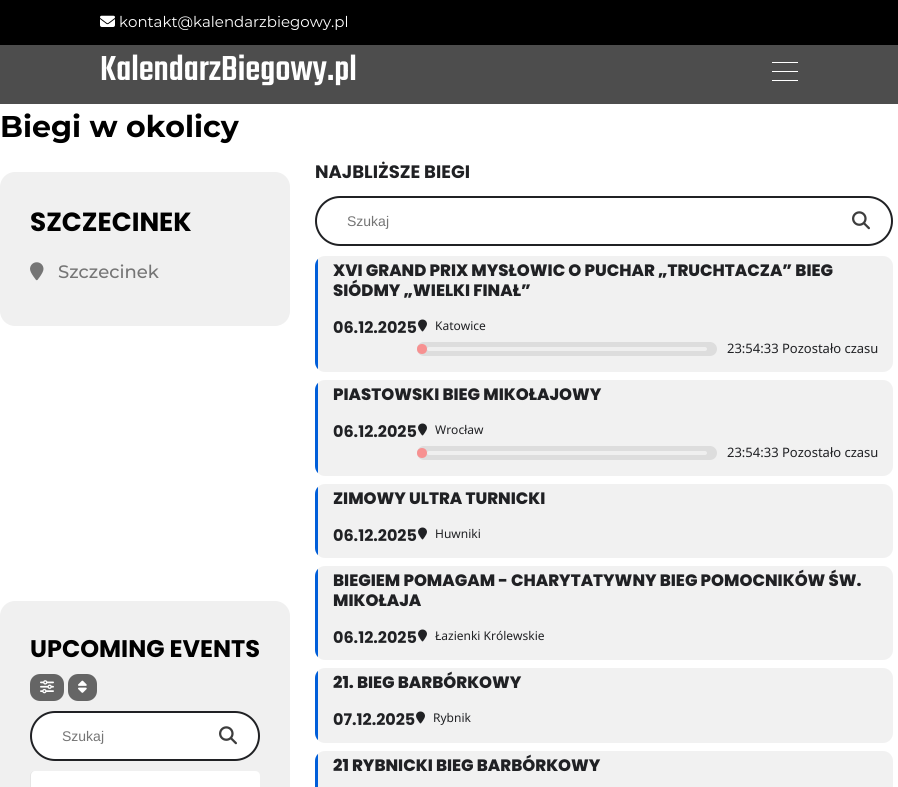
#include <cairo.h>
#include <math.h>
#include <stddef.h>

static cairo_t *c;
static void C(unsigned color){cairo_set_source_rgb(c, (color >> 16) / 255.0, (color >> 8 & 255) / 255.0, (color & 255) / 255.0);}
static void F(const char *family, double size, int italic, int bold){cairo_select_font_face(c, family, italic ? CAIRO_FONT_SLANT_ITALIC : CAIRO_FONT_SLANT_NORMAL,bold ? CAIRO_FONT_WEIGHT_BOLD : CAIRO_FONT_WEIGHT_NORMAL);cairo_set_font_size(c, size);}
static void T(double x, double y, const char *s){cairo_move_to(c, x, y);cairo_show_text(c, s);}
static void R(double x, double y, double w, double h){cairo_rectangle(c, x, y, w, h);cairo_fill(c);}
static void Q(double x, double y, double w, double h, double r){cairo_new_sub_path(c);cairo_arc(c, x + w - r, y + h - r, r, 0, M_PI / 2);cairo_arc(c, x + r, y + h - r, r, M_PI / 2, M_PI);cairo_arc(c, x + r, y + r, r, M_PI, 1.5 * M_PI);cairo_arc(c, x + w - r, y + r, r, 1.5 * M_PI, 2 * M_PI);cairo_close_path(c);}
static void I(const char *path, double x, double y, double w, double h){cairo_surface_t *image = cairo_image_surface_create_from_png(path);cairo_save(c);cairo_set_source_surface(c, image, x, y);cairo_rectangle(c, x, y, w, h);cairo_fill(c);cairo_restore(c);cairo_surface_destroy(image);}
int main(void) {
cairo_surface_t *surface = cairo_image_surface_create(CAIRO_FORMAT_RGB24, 898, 787);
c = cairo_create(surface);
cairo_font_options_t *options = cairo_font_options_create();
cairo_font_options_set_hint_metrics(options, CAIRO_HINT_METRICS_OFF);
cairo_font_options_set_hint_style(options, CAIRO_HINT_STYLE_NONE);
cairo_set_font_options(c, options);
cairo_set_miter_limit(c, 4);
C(0xffffff);
cairo_paint(c);
C(0x4d4d4d);
R(0,45,898,59);
C(0x000000);
R(0,0,898,45);
I("1.png",100,15,15,12);
F("Montserrat",15,0,0);
C(0xffffff);
T(119,27,"kontakt@kalendarzbiegowy.pl");
F("Teko Medium",38,0,0);
T(100,80,"KalendarzBiegowy.pl");
R(772,62,26,1);
R(772,71,26,1);
R(772,80,26,1);
F("Montserrat",30,0,1);
C(0x000000);
T(0,137,"Biegi w okolicy");
C(0xf0f0f0);
Q(0,172,290,154,15);
cairo_fill(c);
F("Poppins",26.25,0,1);
C(0x000000);
T(30,231,"SZCZECINEK");
I("2.png",30,262,14,19);
F("Montserrat Medium",18,0,0);
C(0x757575);
T(58,278,"Szczecinek");
C(0xf0f0f0);
Q(0,601,290,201,15);
cairo_fill(c);
F("Poppins",24,0,1);
C(0x000000);
T(30,657,"UPCOMING EVENTS");
C(0x656565);
Q(30,674,34,27,10);
cairo_fill(c);
I("3.png",40,680,14,14);
Q(68,674,29,27,10);
cairo_fill(c);
I("4.png",78,680,9,13);
C(0xffffff);
Q(31,712,228,48,24);
cairo_fill_preserve(c);
C(0x202124);
cairo_stroke(c);
F("Liberation Sans",14,0,0);
C(0x757575);
T(62,741,"Szukaj");
I("5.png",219,726,18,19);
C(0xe5e5e5);
cairo_new_path(c);
cairo_move_to(c,35,771);
cairo_curve_to(c,32,771,30,773,30,776);
cairo_line_to(c,30,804);
cairo_curve_to(c,30,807,32,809,35,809);
cairo_line_to(c,255,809);
cairo_curve_to(c,258,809,260,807,260,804);
cairo_curve_to(c,260,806,258,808,255,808);
cairo_line_to(c,35,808);
cairo_curve_to(c,33,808,31,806,31,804);
cairo_line_to(c,31,776);
cairo_curve_to(c,31,773,33,771,35,771);
cairo_close_path(c);
cairo_fill(c);
C(0xffffff);
cairo_new_path(c);
cairo_move_to(c,35,771);
cairo_line_to(c,255,771);
cairo_curve_to(c,258,771,260,773,260,776);
cairo_line_to(c,260,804);
cairo_curve_to(c,260,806,258,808,255,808);
cairo_line_to(c,35,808);
cairo_curve_to(c,33,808,31,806,31,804);
cairo_line_to(c,31,776);
cairo_curve_to(c,31,773,33,771,35,771);
cairo_close_path(c);
cairo_fill(c);
F("Poppins",18,0,1);
C(0x202124);
T(315,178,"NAJBLIŻSZE BIEGI");
Q(316,197,576,48,24);
cairo_stroke(c);
F("Liberation Sans",14,0,0);
C(0x757575);
T(347,226,"Szukaj");
I("5.png",852,211,18,19);
C(0xf1f1f1);
Q(315,256,578,116,10);
cairo_fill(c);
cairo_save(c);
Q(315,256,578,116,10);
cairo_clip(c);
C(0x005ed9);
R(315,256,3,116);
cairo_restore(c);
F("Poppins ExtraBold",16.5,0,0);
C(0x202124);
T(333,276,"XVI GRAND PRIX MYSŁOWIC O PUCHAR „TRUCHTACZA” BIEG");
T(333,296,"SIÓDMY „WIELKI FINAŁ”");
F("Poppins",16,0,1);
T(333,333,"06.12.2025");
I("6.png",418,319,9,13);
F("Noto Sans",12,0,0);
T(435,330,"Katowice");
C(0xdddddd);
Q(417,342,300,14,7);
cairo_fill(c);
C(0xefefef);
Q(427,347,280,4,2);
cairo_fill(c);
C(0xf79191);
cairo_arc(c,422,349,5,0,2 * M_PI);
cairo_fill(c);
F("Noto Sans",13,0,0);
C(0x202124);
T(727,353,"23:54:33 Pozostało czasu");
C(0xf1f1f1);
Q(315,380,578,96,10);
cairo_fill(c);
cairo_save(c);
Q(315,380,578,96,10);
cairo_clip(c);
C(0x005ed9);
R(315,380,3,96);
cairo_restore(c);
F("Poppins ExtraBold",16.5,0,0);
C(0x202124);
T(333,400,"PIASTOWSKI BIEG MIKOŁAJOWY");
F("Poppins",16,0,1);
T(333,437,"06.12.2025");
I("6.png",418,423,9,13);
F("Noto Sans",12,0,0);
T(435,434,"Wrocław");
C(0xdddddd);
Q(417,446,300,14,7);
cairo_fill(c);
C(0xefefef);
Q(427,451,280,4,2);
cairo_fill(c);
C(0xf79191);
cairo_arc(c,422,453,5,0,2 * M_PI);
cairo_fill(c);
F("Noto Sans",13,0,0);
C(0x202124);
T(727,457,"23:54:33 Pozostało czasu");
C(0xf1f1f1);
Q(315,484,578,74,10);
cairo_fill(c);
cairo_save(c);
Q(315,484,578,74,10);
cairo_clip(c);
C(0x005ed9);
R(315,484,3,74);
cairo_restore(c);
F("Poppins ExtraBold",16.5,0,0);
C(0x202124);
T(333,504,"ZIMOWY ULTRA TURNICKI");
F("Poppins",16,0,1);
T(333,541,"06.12.2025");
I("6.png",418,527,9,13);
F("Noto Sans",12,0,0);
T(435,538,"Huwniki");
C(0xf1f1f1);
Q(315,566,578,94,10);
cairo_fill(c);
cairo_save(c);
Q(315,566,578,94,10);
cairo_clip(c);
C(0x005ed9);
R(315,566,3,94);
cairo_restore(c);
F("Poppins ExtraBold",16.5,0,0);
C(0x202124);
T(333,586,"BIEGIEM POMAGAM - CHARYTATYWNY BIEG POMOCNIKÓW ŚW.");
T(333,606,"MIKOŁAJA");
F("Poppins",16,0,1);
T(333,643,"06.12.2025");
I("6.png",418,629,9,13);
F("Noto Sans",12,0,0);
T(435,640,"Łazienki Królewskie");
C(0xf1f1f1);
Q(315,668,578,75,10);
cairo_fill(c);
cairo_save(c);
Q(315,668,578,75,10);
cairo_clip(c);
C(0x005ed9);
R(315,668,3,75);
cairo_restore(c);
F("Poppins ExtraBold",16.5,0,0);
C(0x202124);
T(333,688,"21. BIEG BARBÓRKOWY");
F("Poppins",16,0,1);
T(333,725,"07.12.2025");
I("6.png",416,711,9,13);
F("Noto Sans",12,0,0);
T(433,722,"Rybnik");
C(0xf1f1f1);
Q(315,751,578,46,10);
cairo_fill(c);
cairo_save(c);
Q(315,751,578,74,10);
cairo_clip(c);
C(0x005ed9);
R(315,751,3,36);
cairo_restore(c);
F("Poppins ExtraBold",16.5,0,0);
C(0x202124);
T(333,771,"21 RYBNICKI BIEG BARBÓRKOWY");
cairo_surface_write_to_png(surface, "o.png");
cairo_font_options_destroy(options);
cairo_destroy(c);
cairo_surface_destroy(surface);
return 0;
}
